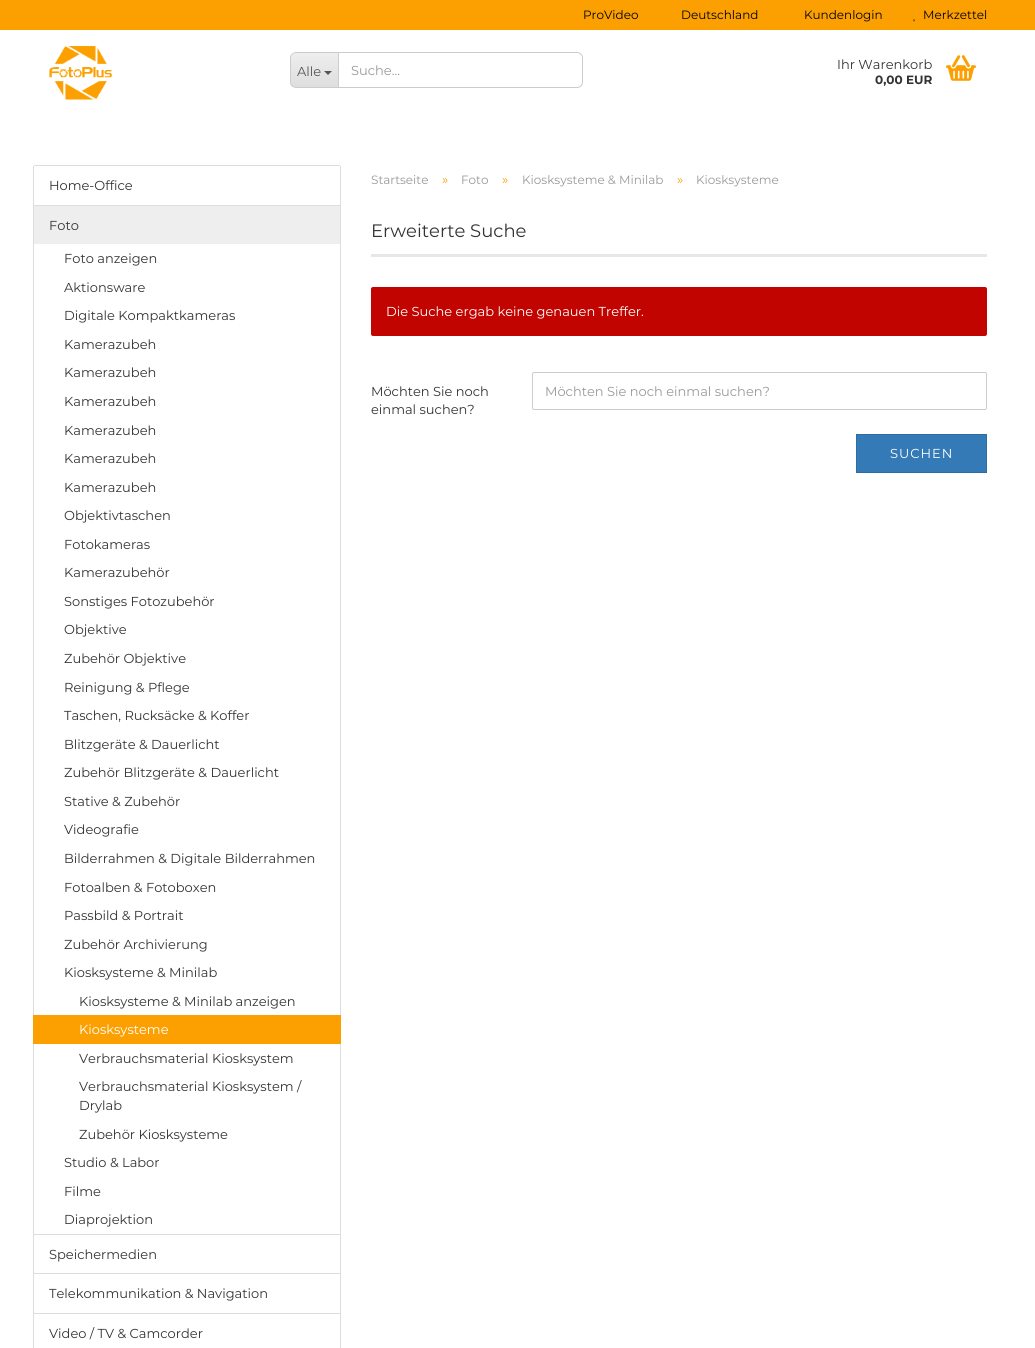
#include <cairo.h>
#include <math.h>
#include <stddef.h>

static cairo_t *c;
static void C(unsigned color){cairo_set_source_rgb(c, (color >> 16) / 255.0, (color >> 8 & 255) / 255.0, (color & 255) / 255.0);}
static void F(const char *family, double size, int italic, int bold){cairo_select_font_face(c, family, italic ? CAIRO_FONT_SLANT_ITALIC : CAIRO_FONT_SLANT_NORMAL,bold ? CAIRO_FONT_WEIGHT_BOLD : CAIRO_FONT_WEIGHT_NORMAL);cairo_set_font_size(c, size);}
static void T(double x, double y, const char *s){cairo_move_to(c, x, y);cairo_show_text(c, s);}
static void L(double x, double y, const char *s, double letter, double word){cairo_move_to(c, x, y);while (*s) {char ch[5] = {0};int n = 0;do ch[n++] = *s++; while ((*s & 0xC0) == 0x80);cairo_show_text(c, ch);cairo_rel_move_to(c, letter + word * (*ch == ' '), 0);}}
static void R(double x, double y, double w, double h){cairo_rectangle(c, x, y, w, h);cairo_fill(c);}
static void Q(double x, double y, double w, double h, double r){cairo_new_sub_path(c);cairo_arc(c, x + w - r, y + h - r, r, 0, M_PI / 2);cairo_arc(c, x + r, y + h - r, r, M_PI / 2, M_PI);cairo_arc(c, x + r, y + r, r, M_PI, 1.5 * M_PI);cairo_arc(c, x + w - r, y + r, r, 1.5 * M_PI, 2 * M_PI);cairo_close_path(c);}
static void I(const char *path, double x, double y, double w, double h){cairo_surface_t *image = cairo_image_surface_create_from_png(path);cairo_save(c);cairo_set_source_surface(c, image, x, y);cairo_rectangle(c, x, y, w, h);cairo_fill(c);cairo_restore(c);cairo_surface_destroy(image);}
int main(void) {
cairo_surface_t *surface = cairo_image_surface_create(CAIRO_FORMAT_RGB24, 1035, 1348);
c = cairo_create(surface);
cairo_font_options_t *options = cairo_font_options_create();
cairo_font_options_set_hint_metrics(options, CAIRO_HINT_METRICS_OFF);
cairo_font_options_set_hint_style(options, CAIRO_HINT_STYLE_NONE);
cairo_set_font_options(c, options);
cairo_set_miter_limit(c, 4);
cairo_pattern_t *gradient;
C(0xffffff);
cairo_paint(c);
C(0xfca002);
R(0,0,1035,30);
F("Montserrat",12,0,0);
C(0x000000);
T(583,19,"ProVideo");
T(681,19,"Deutschland");
T(804,19,"Kundenlogin");
T(923,19,"Merkzettel");
I("1.png",913,19,2,3);
I("2.png",49,46,64,54);
cairo_save(c);
cairo_new_path(c);
cairo_move_to(c,296,52);
cairo_line_to(c,338,52);
cairo_line_to(c,338,88);
cairo_line_to(c,296,88);
cairo_curve_to(c,292.5,88,290,85.5,290,82);
cairo_line_to(c,290,58);
cairo_curve_to(c,290,54.5,292.5,52,296,52);
cairo_close_path(c);
cairo_clip(c);
gradient = cairo_pattern_create_linear(315,53,315,87);
cairo_pattern_add_color_stop_rgba(gradient,0,0.933,0.933,0.933,1);
cairo_pattern_add_color_stop_rgba(gradient,1,0.871,0.871,0.871,1);
cairo_set_source(c,gradient);
cairo_pattern_destroy(gradient);
R(290,53,48,34);
cairo_restore(c);
C(0xcccccc);
cairo_set_fill_rule(c,CAIRO_FILL_RULE_EVEN_ODD);
cairo_new_path(c);
cairo_move_to(c,296,52);
cairo_line_to(c,338,52);
cairo_line_to(c,338,88);
cairo_line_to(c,296,88);
cairo_curve_to(c,293,88,290,85,290,82);
cairo_line_to(c,290,58);
cairo_curve_to(c,290,55,293,52,296,52);
cairo_close_path(c);
cairo_move_to(c,296,53);
cairo_line_to(c,338,53);
cairo_line_to(c,338,87);
cairo_line_to(c,296,87);
cairo_curve_to(c,293,87,291,85,291,82);
cairo_line_to(c,291,58);
cairo_curve_to(c,291,55,293,53,296,53);
cairo_close_path(c);
cairo_fill(c);
F("Montserrat",13,0,0);
C(0x555555);
T(297,76,"Alle");
cairo_set_fill_rule(c,CAIRO_FILL_RULE_WINDING);
cairo_new_path(c);
cairo_move_to(c,324,71);
cairo_line_to(c,332,71);
cairo_line_to(c,328,75);
cairo_close_path(c);
cairo_fill(c);
cairo_new_path(c);
cairo_move_to(c,338.5,52.5);
cairo_line_to(c,577,52.5);
cairo_curve_to(c,580,52.5,582.5,55,582.5,58);
cairo_line_to(c,582.5,82);
cairo_curve_to(c,582.5,85,580,87.5,577,87.5);
cairo_line_to(c,338.5,87.5);
cairo_close_path(c);
C(0xcccccc);
cairo_set_line_width(c,1);
cairo_stroke(c);
C(0x999999);
T(351,75,"Suche...");
C(0x333333);
T(837,69,"Ihr Warenkorb");
F("Montserrat",12,0,1);
T(875,84,"0,00 EUR");
I("3.png",946,55,30,26);
C(0xdddddd);
R(34,165,306,1);
R(340,166,1,1182);
R(33,166,1,1182);
R(34,205,306,1);
F("Montserrat",13,0,0);
C(0x333333);
T(49,190,"Home-Office");
C(0xdddddd);
R(34,1234,306,1);
C(0xeeeeee);
R(34,206,306,38);
C(0x333333);
T(49,230,"Foto");
T(64,263,"Foto anzeigen");
T(64,292,"Aktionsware");
T(64,320,"Digitale Kompaktkameras");
T(64,349,"Kamerazubeh");
T(64,377,"Kamerazubeh");
T(64,406,"Kamerazubeh");
T(64,435,"Kamerazubeh");
T(64,463,"Kamerazubeh");
T(64,492,"Kamerazubeh");
T(64,520,"Objektivtaschen");
T(64,549,"Fotokameras");
T(64,577,"Kamerazubehör");
T(64,606,"Sonstiges Fotozubehör");
T(64,634,"Objektive");
T(64,663,"Zubehör Objektive");
T(64,692,"Reinigung & Pflege");
T(64,720,"Taschen, Rucksäcke & Koffer");
T(64,749,"Blitzgeräte & Dauerlicht");
T(64,777,"Zubehör Blitzgeräte & Dauerlicht");
T(64,806,"Stative & Zubehör");
T(64,834,"Videografie");
T(64,863,"Bilderrahmen & Digitale Bilderrahmen");
T(64,892,"Fotoalben & Fotoboxen");
T(64,920,"Passbild & Portrait");
T(64,949,"Zubehör Archivierung");
T(64,977,"Kiosksysteme & Minilab");
T(79,1006,"Kiosksysteme & Minilab anzeigen");
C(0xfca002);
R(33,1015,308,29);
C(0xffffff);
T(79,1034,"Kiosksysteme");
C(0x333333);
T(79,1063,"Verbrauchsmaterial Kiosksystem");
T(79,1091,"Verbrauchsmaterial Kiosksystem /");
T(79,1110,"Drylab");
T(79,1139,"Zubehör Kiosksysteme");
T(64,1167,"Studio & Labor");
T(64,1196,"Filme");
T(64,1224,"Diaprojektion");
C(0xdddddd);
R(34,1273,306,1);
C(0x333333);
T(49,1259,"Speichermedien");
C(0xdddddd);
R(34,1313,306,1);
C(0x333333);
T(49,1298,"Telekommunikation & Navigation");
T(49,1338,"Video / TV & Camcorder");
F("Montserrat",12,0,0);
C(0x999999);
T(371,184,"Startseite");
F("Montserrat",13,0,0);
C(0xfca002);
T(442,184,"»");
F("Montserrat",12,0,0);
C(0x999999);
T(461,184,"Foto");
F("Montserrat",13,0,0);
C(0xfca002);
T(502,184,"»");
F("Montserrat",12,0,0);
C(0x999999);
T(522,184,"Kiosksysteme & Minilab");
F("Montserrat",13,0,0);
C(0xfca002);
T(677,184,"»");
F("Montserrat",12,0,0);
C(0x999999);
T(696,184,"Kiosksysteme");
C(0xe7e7e7);
R(371,254,616,3);
F("Montserrat",18,0,0);
C(0x333333);
T(371,237,"Erweiterte Suche");
C(0xc20400);
Q(371,287,616,49,2);
cairo_fill(c);
F("Montserrat",13,0,0);
C(0xffffff);
T(386,316,"Die Suche ergab keine genauen Treffer.");
C(0x333333);
T(371,396,"Möchten Sie noch");
T(371,414,"einmal suchen?");
Q(532.5,372.5,454,37,1.5);
C(0xcccccc);
cairo_stroke(c);
C(0x999999);
T(545,396,"Möchten Sie noch einmal suchen?");
C(0x337ab7);
cairo_rectangle(c,856.5,434.5,130,38);
cairo_fill_preserve(c);
C(0x2d6da3);
cairo_stroke(c);
C(0xffffff);
L(890,458,"SUCHEN",1,0);
cairo_surface_write_to_png(surface, "o.png");
cairo_font_options_destroy(options);
cairo_destroy(c);
cairo_surface_destroy(surface);
return 0;
}
